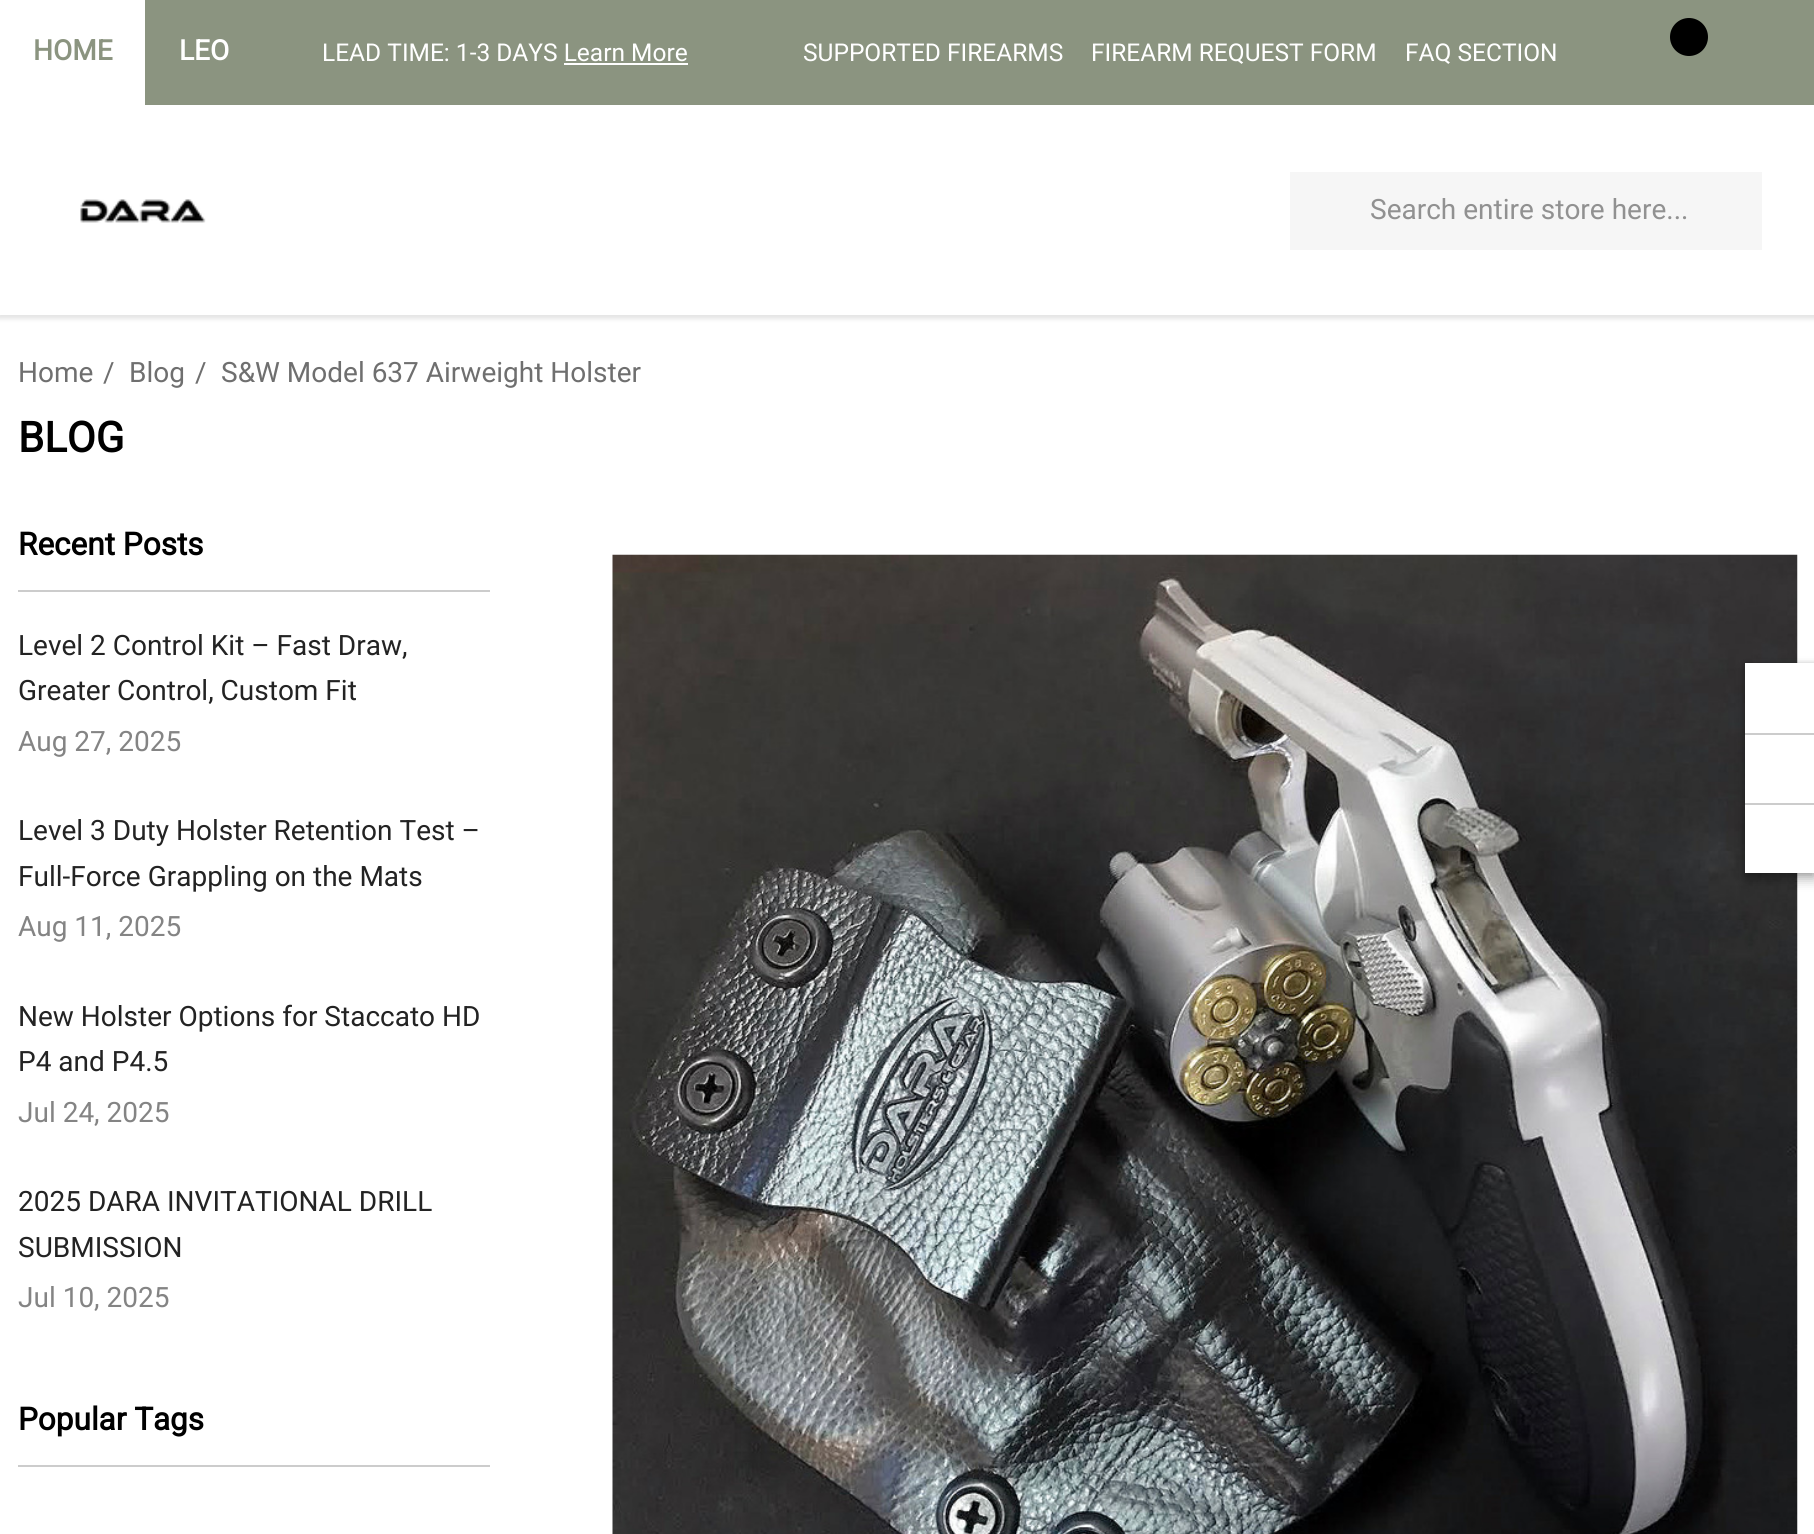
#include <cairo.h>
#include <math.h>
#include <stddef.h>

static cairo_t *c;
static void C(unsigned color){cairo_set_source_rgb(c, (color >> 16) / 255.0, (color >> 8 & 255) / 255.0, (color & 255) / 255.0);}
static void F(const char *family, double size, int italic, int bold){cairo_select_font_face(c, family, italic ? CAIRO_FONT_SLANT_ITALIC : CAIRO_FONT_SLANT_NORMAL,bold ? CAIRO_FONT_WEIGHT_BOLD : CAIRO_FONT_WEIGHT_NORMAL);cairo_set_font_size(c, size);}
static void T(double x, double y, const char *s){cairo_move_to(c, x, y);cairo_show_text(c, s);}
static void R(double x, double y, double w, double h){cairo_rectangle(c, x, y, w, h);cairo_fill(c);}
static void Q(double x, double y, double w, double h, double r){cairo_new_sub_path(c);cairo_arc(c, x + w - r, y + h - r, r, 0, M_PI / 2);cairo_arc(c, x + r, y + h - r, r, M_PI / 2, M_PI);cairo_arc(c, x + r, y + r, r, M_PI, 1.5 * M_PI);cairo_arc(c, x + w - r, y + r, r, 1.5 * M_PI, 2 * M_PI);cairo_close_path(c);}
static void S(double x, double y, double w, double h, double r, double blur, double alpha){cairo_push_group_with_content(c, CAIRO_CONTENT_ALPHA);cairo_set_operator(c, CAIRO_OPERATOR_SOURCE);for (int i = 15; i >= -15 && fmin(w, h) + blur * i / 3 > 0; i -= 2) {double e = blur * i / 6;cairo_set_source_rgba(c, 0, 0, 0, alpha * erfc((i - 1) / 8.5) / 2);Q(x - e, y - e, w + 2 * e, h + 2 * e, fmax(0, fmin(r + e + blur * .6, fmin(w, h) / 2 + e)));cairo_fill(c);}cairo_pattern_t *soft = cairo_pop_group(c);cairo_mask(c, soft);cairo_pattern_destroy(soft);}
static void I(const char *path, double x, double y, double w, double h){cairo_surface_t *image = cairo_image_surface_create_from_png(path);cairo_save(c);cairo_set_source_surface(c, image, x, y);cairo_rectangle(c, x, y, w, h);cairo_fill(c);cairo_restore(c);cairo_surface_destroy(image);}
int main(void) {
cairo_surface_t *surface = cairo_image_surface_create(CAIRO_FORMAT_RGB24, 1814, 1534);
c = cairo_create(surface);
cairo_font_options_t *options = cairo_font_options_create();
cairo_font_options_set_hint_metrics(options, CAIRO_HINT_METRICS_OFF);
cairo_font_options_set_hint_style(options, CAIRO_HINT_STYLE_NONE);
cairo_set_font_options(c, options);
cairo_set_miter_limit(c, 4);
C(0xffffff);
cairo_paint(c);
cairo_save(c);
cairo_rectangle(c,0,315,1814,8);
cairo_clip(c);
C(0xe5e5e5);
S(-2,0,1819,319,0,2,1);
cairo_restore(c);
C(0x8b9480);
R(145,0,1669,105);
F("Roboto",28,0,1);
T(33,60,"HOME");
C(0xffffff);
T(179,60,"LEO");
F("Roboto",24.5,0,0);
T(322,61,"LEAD TIME: 1-3 DAYS Learn More");
R(564,63,124,2);
T(803,61,"SUPPORTED FIREARMS");
T(1091,61,"FIREARM REQUEST FORM");
T(1405,61,"FAQ SECTION");
C(0x000000);
cairo_new_path(c);
cairo_arc(c,1689,37,19,0,2 * M_PI);
cairo_fill(c);
I("1.png",80,199,126,24);
C(0xf6f6f6);
R(1290,172,472,78);
F("Roboto",28,0,0);
C(0x919191);
T(1370,219,"Search entire store here...");
C(0x6f6f6f);
T(18,382,"Home");
T(103,382,"/");
T(129,382,"Blog");
T(195,382,"/");
T(221,382,"S&W Model 637 Airweight Holster");
F("Roboto",42,0,1);
C(0x000000);
T(18,452,"BLOG");
C(0xcccccc);
R(18,590,472,2);
F("Roboto",31.5,0,1);
C(0x000000);
T(18,555,"Recent Posts");
F("Roboto",28,0,0);
C(0x232323);
T(18,655,"Level 2 Control Kit – Fast Draw,");
T(18,700,"Greater Control, Custom Fit");
C(0x848484);
T(18,751,"Aug 27, 2025");
C(0x232323);
T(18,840,"Level 3 Duty Holster Retention Test –");
T(18,886,"Full-Force Grappling on the Mats");
C(0x848484);
T(18,936,"Aug 11, 2025");
C(0x232323);
T(18,1026,"New Holster Options for Staccato HD");
T(18,1071,"P4 and P4.5");
C(0x848484);
T(18,1122,"Jul 24, 2025");
C(0x232323);
T(18,1211,"2025 DARA INVITATIONAL DRILL");
T(18,1257,"SUBMISSION");
C(0x848484);
T(18,1307,"Jul 10, 2025");
C(0xcccccc);
R(18,1465,472,2);
F("Roboto",31.5,0,1);
C(0x000000);
T(18,1430,"Popular Tags");
I("2.png",612,554,1186,980);
C(0x000000);
S(1745,669,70,210,0,6,.3);
S(1743,662,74,213,0,2,.1);
C(0xffffff);
R(1745,663,69,210);
C(0xcccccc);
R(1745,733,69,2);
R(1745,803,69,2);
cairo_surface_write_to_png(surface, "o.png");
cairo_font_options_destroy(options);
cairo_destroy(c);
cairo_surface_destroy(surface);
return 0;
}
